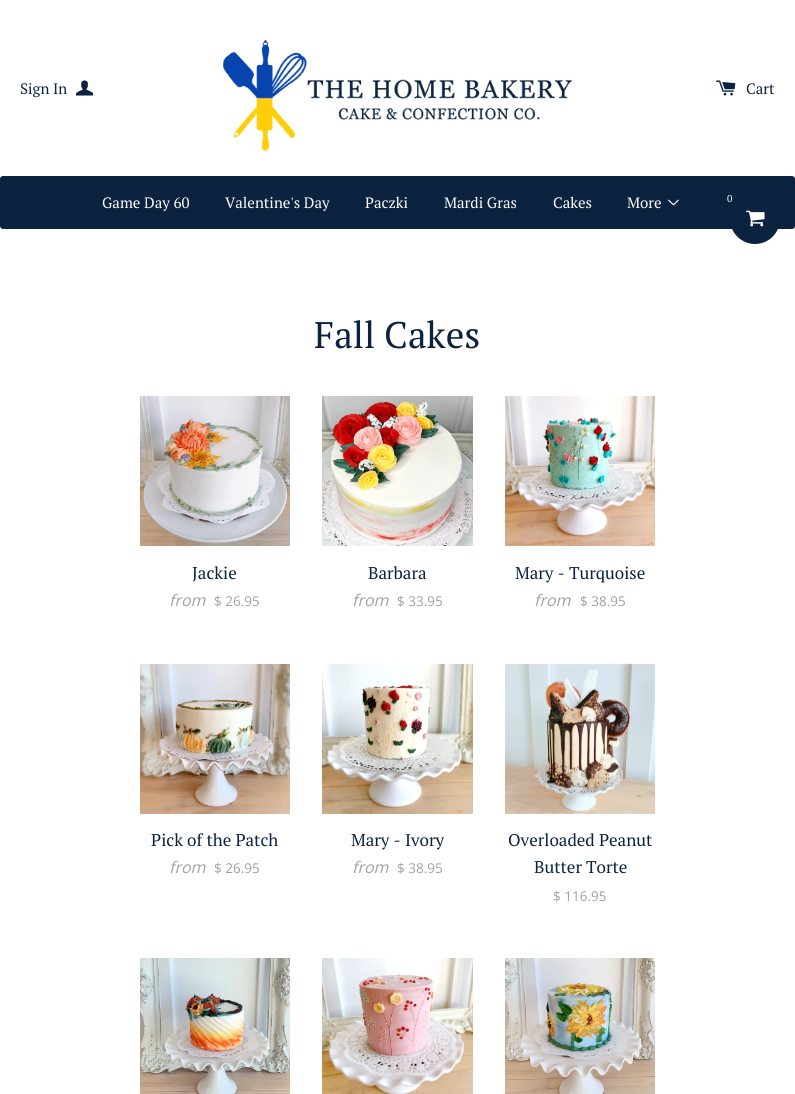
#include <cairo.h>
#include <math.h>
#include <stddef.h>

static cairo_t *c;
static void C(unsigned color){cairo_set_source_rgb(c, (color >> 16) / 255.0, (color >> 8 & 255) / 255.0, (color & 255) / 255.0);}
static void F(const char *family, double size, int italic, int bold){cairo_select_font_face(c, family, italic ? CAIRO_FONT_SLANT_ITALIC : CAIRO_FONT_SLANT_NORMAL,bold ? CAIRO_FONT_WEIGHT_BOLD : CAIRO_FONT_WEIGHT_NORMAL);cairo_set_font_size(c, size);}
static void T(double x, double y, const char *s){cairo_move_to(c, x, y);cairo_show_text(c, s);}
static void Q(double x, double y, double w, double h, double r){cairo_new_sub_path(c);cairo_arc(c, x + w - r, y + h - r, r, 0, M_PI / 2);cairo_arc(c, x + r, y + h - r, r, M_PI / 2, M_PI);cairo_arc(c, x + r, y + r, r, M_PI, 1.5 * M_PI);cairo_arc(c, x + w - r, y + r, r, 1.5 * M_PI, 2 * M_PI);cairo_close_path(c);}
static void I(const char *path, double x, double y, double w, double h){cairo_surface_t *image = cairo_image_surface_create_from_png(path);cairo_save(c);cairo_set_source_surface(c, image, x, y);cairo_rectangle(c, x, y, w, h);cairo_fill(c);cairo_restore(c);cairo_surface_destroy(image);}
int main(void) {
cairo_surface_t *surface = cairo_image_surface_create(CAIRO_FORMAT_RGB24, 795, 1094);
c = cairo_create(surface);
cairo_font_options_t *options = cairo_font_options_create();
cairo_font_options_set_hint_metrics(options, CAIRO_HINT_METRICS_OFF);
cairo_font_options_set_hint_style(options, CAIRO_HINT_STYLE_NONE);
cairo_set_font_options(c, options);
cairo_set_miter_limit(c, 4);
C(0xffffff);
cairo_paint(c);
F("PT Serif",15,0,0);
C(0x0b233f);
T(20,94,"Sign In");
I("1.png",76,80,18,16);
I("2.png",223,40,349,111);
I("3.png",716,80,20,16);
T(746,94,"Cart");
Q(0,176,795,53,3);
cairo_fill(c);
C(0xffffff);
T(102,208,"Game Day 60");
T(225,208,"Valentine's Day");
T(365,208,"Paczki");
T(444,208,"Mardi Gras");
T(553,208,"Cakes");
T(627,208,"More");
I("4.png",668,199,11,7);
C(0x0b233f);
cairo_arc(c,755,219,25,0,2 * M_PI);
cairo_fill(c);
F("PT Serif",10,0,0);
C(0xffffff);
T(727,202,"0");
I("5.png",746,210,19,17);
F("PT Serif",37,0,0);
C(0x0b233f);
T(314,348,"Fall Cakes");
I("6.png",140,396,150,150);
F("PT Serif",17,0,0);
T(192,579,"Jackie");
F("Open Sans",16,1,0);
C(0xa1a1a1);
T(169,606,"from");
F("Open Sans",13.5,0,0);
T(214,606,"$ 26.95");
I("7.png",322,396,151,150);
F("PT Serif",17,0,0);
C(0x0b233f);
T(368,579,"Barbara");
F("Open Sans",16,1,0);
C(0xa1a1a1);
T(352,606,"from");
F("Open Sans",13.5,0,0);
T(397,606,"$ 33.95");
I("8.png",505,396,150,150);
F("PT Serif",17,0,0);
C(0x0b233f);
T(515,579,"Mary - Turquoise");
F("Open Sans",16,1,0);
C(0xa1a1a1);
T(534,606,"from");
F("Open Sans",13.5,0,0);
T(580,606,"$ 38.95");
I("9.png",140,664,150,150);
F("PT Serif",17,0,0);
C(0x0b233f);
T(151,846,"Pick of the Patch");
F("Open Sans",16,1,0);
C(0xa1a1a1);
T(169,873,"from");
F("Open Sans",13.5,0,0);
T(214,873,"$ 26.95");
I("10.png",322,664,151,150);
F("PT Serif",17,0,0);
C(0x0b233f);
T(351,846,"Mary - Ivory");
F("Open Sans",16,1,0);
C(0xa1a1a1);
T(352,873,"from");
F("Open Sans",13.5,0,0);
T(397,873,"$ 38.95");
I("11.png",505,663,150,151);
F("PT Serif",17,0,0);
C(0x0b233f);
T(508,846,"Overloaded Peanut");
T(534,873,"Butter Torte");
F("Open Sans",13.5,0,0);
C(0xa1a1a1);
T(553,901,"$ 116.95");
I("12.png",140,958,150,136);
I("13.png",322,958,151,136);
I("14.png",505,958,150,136);
cairo_surface_write_to_png(surface, "o.png");
cairo_font_options_destroy(options);
cairo_destroy(c);
cairo_surface_destroy(surface);
return 0;
}
